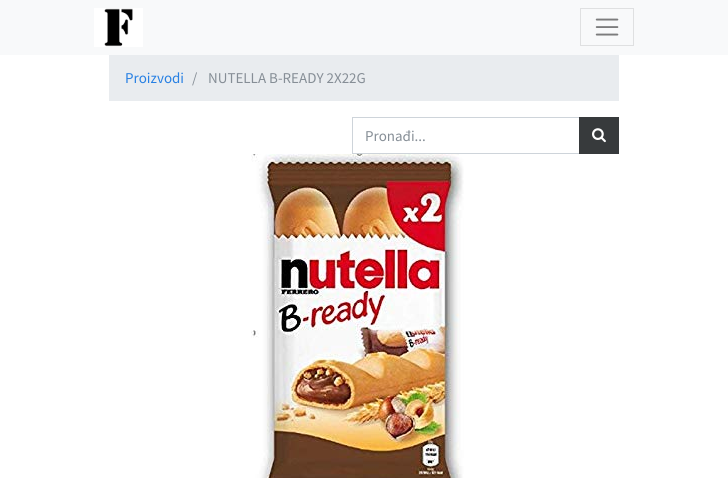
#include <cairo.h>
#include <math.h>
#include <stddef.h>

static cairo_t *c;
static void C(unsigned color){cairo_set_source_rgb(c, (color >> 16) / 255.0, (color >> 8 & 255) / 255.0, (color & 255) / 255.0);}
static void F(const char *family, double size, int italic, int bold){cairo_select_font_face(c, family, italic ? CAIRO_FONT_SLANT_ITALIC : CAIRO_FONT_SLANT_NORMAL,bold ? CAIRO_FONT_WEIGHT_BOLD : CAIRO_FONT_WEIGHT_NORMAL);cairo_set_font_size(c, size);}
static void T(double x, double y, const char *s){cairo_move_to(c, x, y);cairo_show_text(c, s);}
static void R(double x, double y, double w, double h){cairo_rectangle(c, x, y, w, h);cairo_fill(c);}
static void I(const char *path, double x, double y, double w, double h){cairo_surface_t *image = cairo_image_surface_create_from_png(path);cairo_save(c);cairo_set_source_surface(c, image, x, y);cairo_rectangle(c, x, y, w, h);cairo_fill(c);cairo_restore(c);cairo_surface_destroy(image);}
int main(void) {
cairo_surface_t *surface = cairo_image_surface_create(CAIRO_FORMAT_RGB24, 728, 478);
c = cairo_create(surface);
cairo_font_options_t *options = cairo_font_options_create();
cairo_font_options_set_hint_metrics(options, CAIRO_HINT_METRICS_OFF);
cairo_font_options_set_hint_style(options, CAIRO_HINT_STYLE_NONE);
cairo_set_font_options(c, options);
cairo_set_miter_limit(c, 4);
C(0xffffff);
cairo_paint(c);
C(0xf8f9fa);
R(0,0,728,55);
I("1.png",94,8,49,39);
cairo_rectangle(c,580.5,8.5,53,37);
C(0xdfe0e1);
cairo_set_line_width(c,1);
cairo_stroke(c);
I("2.png",595,18,24,18);
C(0xe9ecef);
R(109,55,510,46);
F("Source Sans Pro",15,0,0);
C(0x2780e3);
T(125,83,"Proizvodi");
C(0x868e96);
T(192,83,"/");
T(208,83,"NUTELLA B-READY 2X22G");
cairo_rectangle(c,352.5,117.5,227,36);
C(0xced4da);
cairo_stroke(c);
C(0x868e96);
T(365,141,"Pronađi...");
C(0x373a3c);
R(579,117,40,37);
I("3.png",592,128,14,15);
I("4.png",251,154,213,324);
cairo_surface_write_to_png(surface, "o.png");
cairo_font_options_destroy(options);
cairo_destroy(c);
cairo_surface_destroy(surface);
return 0;
}
